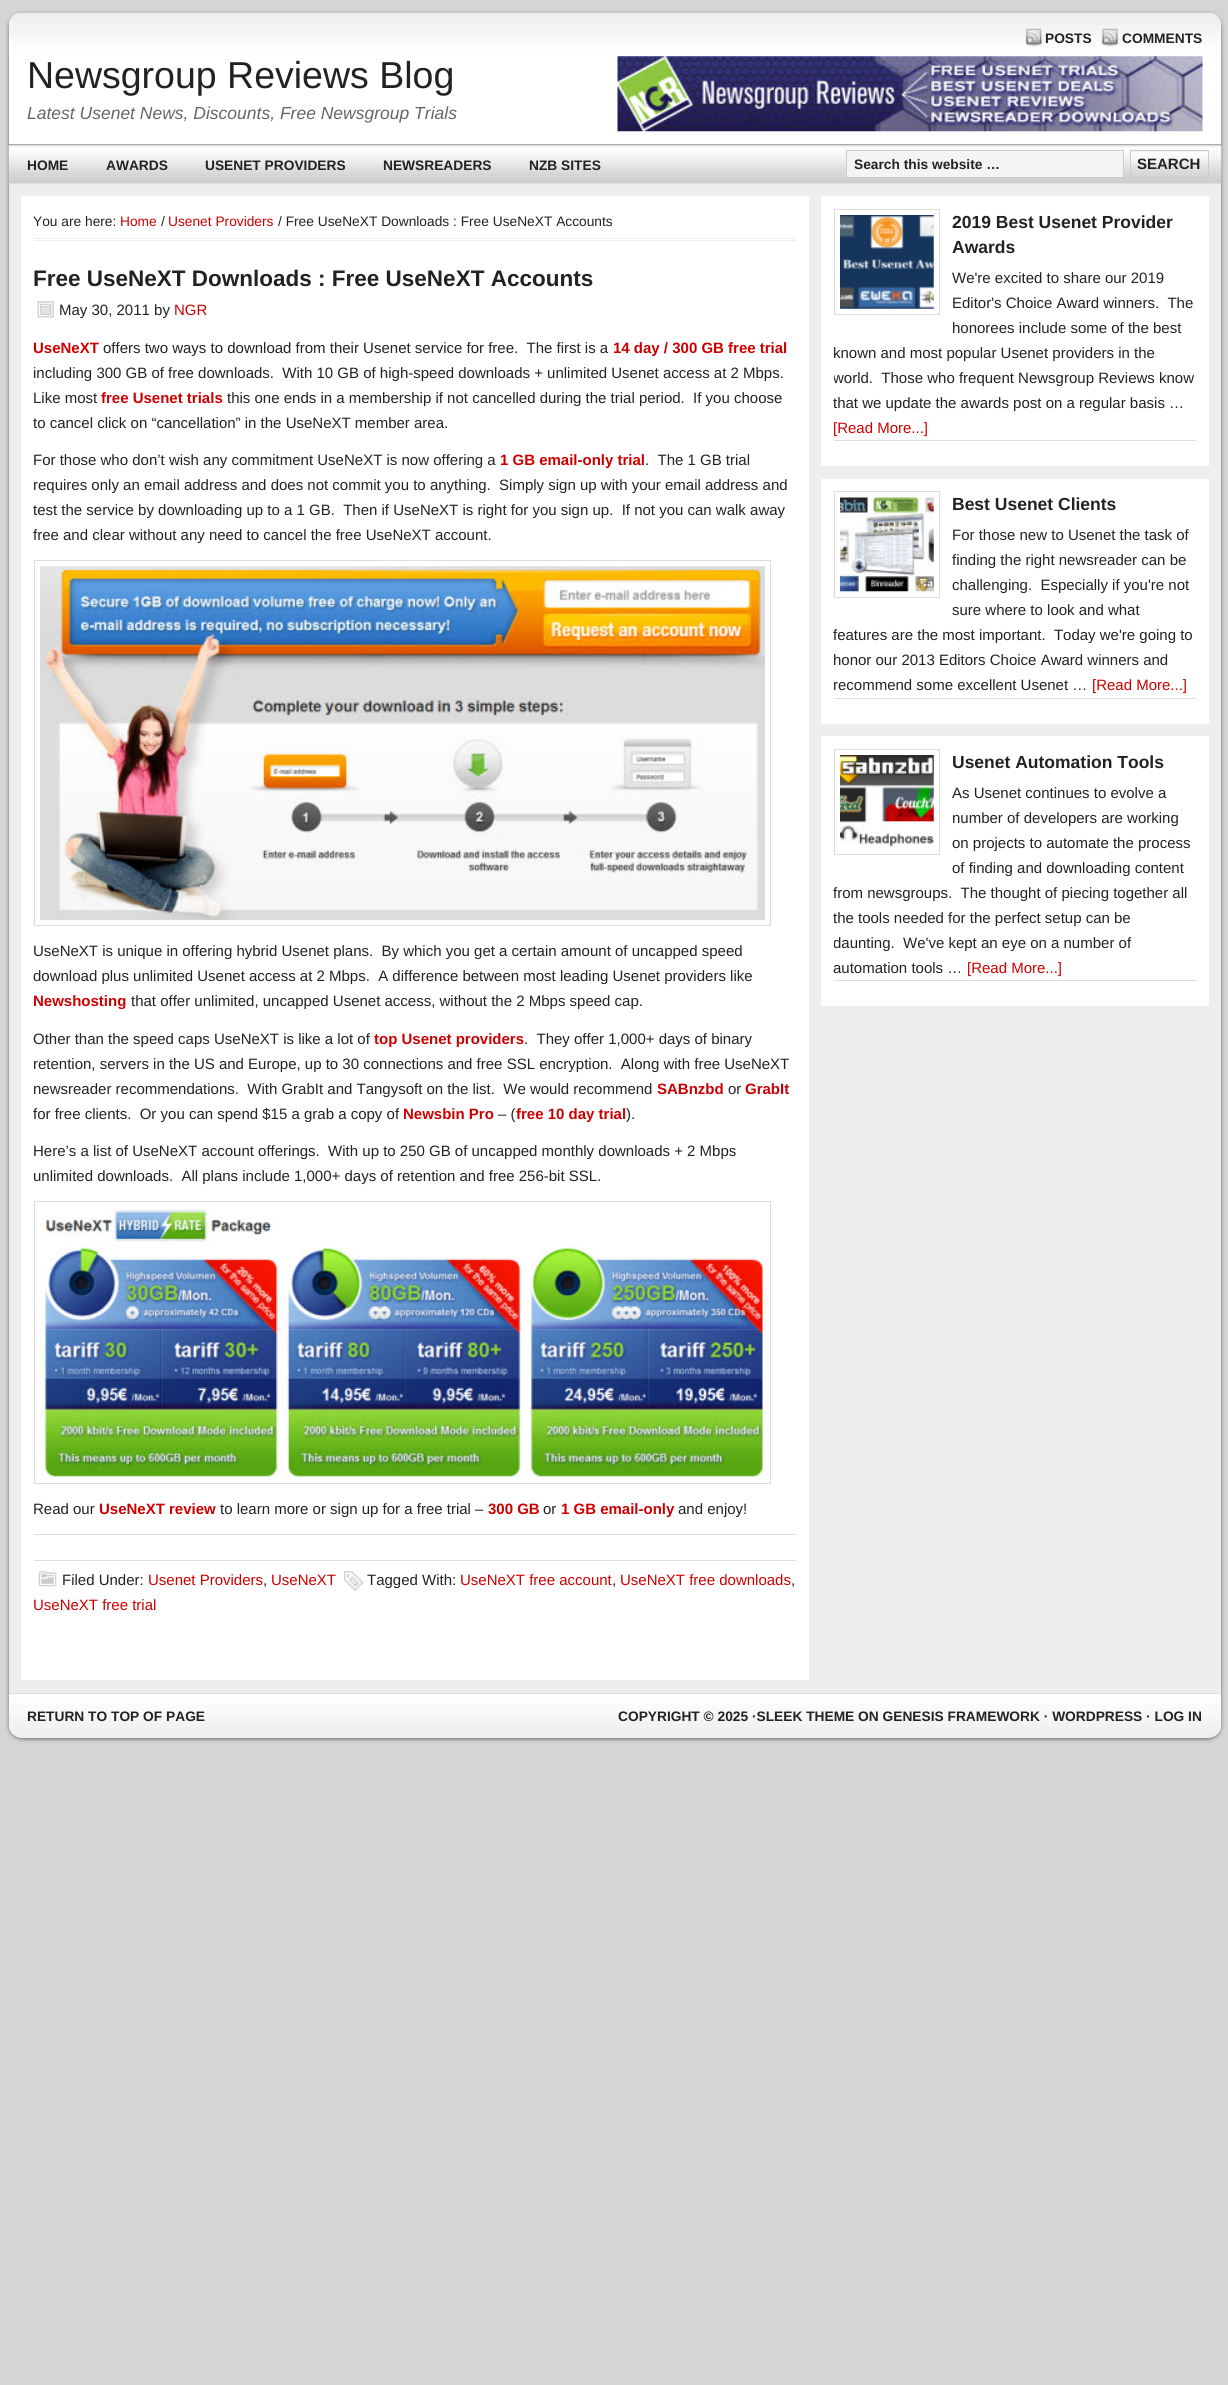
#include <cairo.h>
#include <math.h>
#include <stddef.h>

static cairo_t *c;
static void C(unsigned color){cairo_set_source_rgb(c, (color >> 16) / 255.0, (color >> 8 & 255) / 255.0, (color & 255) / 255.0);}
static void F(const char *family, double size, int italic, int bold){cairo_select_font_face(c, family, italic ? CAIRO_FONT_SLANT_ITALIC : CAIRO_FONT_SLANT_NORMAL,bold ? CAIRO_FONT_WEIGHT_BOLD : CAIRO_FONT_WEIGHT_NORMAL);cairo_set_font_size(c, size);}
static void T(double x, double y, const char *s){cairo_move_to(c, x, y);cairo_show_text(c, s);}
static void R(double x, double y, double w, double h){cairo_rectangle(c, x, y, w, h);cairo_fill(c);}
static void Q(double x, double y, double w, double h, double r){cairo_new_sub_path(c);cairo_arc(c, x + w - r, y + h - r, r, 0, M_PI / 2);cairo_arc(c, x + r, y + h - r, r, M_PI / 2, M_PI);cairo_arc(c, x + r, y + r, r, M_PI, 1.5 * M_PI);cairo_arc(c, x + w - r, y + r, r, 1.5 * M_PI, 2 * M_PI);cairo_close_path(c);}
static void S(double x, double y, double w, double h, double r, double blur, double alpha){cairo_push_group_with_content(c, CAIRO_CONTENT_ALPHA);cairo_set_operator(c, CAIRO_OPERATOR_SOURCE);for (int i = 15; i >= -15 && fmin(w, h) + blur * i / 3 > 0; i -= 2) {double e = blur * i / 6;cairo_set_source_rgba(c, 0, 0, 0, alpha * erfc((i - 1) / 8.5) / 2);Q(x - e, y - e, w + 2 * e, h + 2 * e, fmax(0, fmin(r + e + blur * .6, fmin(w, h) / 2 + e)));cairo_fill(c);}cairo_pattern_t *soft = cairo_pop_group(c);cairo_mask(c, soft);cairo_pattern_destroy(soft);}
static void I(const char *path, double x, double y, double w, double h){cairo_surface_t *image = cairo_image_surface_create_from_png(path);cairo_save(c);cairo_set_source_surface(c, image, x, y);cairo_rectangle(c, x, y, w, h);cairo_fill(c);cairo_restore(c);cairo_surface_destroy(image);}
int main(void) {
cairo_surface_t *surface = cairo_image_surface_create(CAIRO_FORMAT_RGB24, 1228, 2385);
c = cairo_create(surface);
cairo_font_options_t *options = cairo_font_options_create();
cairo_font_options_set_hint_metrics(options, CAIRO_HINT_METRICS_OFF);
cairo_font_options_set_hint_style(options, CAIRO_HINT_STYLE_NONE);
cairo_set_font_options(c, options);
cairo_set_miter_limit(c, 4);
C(0xd5d5d5);
cairo_paint(c);
C(0x666666);
S(9,14,1212,1725,13,2,1);
C(0xeeeeee);
Q(9,13,1212,1725,13);
cairo_fill(c);
I("1.png",8,12,1214,44);
I("2.png",1025,28,18,19);
F("Liberation Sans",13.75,0,1);
C(0x222222);
T(1045,43,"POSTS");
I("3.png",1101,28,18,19);
T(1122,43,"COMMENTS");
C(0xffffff);
R(9,56,1212,88);
C(0xaaaaaa);
R(9,144,1212,1);
F("Liberation Sans",37.5,0,0);
C(0x222222);
T(27,88,"Newsgroup Reviews Blog");
F("Liberation Sans",17.5,1,0);
C(0x666666);
T(27,119,"Latest Usenet News, Discounts, Free Newsgroup Trials");
I("4.png",617,56,586,76);
I("5.png",8,145,1214,39);
C(0xdddddd);
R(9,145,1212,1);
F("Liberation Sans",13.75,0,1);
C(0x222222);
T(27,170,"HOME");
T(106,170,"AWARDS");
T(205,170,"USENET PROVIDERS");
T(383,170,"NEWSREADERS");
T(529,170,"NZB SITES");
C(0xf4f4f4);
cairo_rectangle(c,846.5,150.5,277,27);
cairo_fill_preserve(c);
C(0xcccccc);
cairo_set_line_width(c,1);
cairo_stroke(c);
C(0x222222);
T(854,169,"Search this website …");
I("6.png",1131,151,77,11);
cairo_rectangle(c,1130.5,150.5,78,27);
C(0xcccccc);
cairo_stroke(c);
F("Liberation Sans",15,0,1);
C(0x222222);
T(1137,169,"SEARCH");
C(0xffffff);
R(21,196,788,1484);
C(0xeeeeee);
R(34,238,762,1);
R(34,240,762,1);
F("Liberation Sans",13.75,0,0);
C(0x222222);
T(33,226,"You are here:");
C(0xcc0000);
T(120,226,"Home");
C(0x222222);
T(161,226,"/");
C(0xcc0000);
T(168,226,"Usenet Providers");
C(0x222222);
T(278,226,"/ Free UseNeXT Downloads : Free UseNeXT Accounts");
F("Liberation Sans",22.5,0,1);
T(33,286,"Free UseNeXT Downloads : Free UseNeXT Accounts");
I("7.png",37,301,17,17);
F("Liberation Sans",15,0,0);
T(59,315,"May 30, 2011 by");
C(0xcc0000);
T(174,315,"NGR");
F("Liberation Sans",15,0,1);
T(33,353,"UseNeXT");
F("Liberation Sans",15,0,0);
C(0x222222);
T(103,353,"offers two ways to download from their Usenet service for free.  The first is a");
F("Liberation Sans",15,0,1);
C(0xcc0000);
T(613,353,"14 day / 300 GB free trial");
F("Liberation Sans",15,0,0);
C(0x222222);
T(33,378,"including 300 GB of free downloads.  With 10 GB of high-speed downloads + unlimited Usenet access at 2 Mbps.");
T(33,403,"Like most");
F("Liberation Sans",15,0,1);
C(0xcc0000);
T(101,403,"free Usenet trials");
F("Liberation Sans",15,0,0);
C(0x222222);
T(227,403,"this one ends in a membership if not cancelled during the trial period.  If you choose");
T(33,428,"to cancel click on “cancellation” in the UseNeXT member area.");
T(33,465,"For those who don’t wish any commitment UseNeXT is now offering a");
F("Liberation Sans",15,0,1);
C(0xcc0000);
T(500,465,"1 GB email-only trial");
F("Liberation Sans",15,0,0);
C(0x222222);
T(645,465,".  The 1 GB trial");
T(33,490,"requires only an email address and does not commit you to anything.  Simply sign up with your email address and");
T(33,515,"test the service by downloading up to a 1 GB.  Then if UseNeXT is right for you sign up.  If not you can walk away");
T(33,540,"free and clear without any need to cancel the free UseNeXT account.");
cairo_rectangle(c,34.5,560.5,736,365);
C(0xdddddd);
cairo_stroke(c);
I("8.png",40,566,725,354);
C(0x222222);
T(33,956,"UseNeXT is unique in offering hybrid Usenet plans.  By which you get a certain amount of uncapped speed");
T(33,981,"download plus unlimited Usenet access at 2 Mbps.  A difference between most leading Usenet providers like");
F("Liberation Sans",15,0,1);
C(0xcc0000);
T(33,1006,"Newshosting");
F("Liberation Sans",15,0,0);
C(0x222222);
T(131,1006,"that offer unlimited, uncapped Usenet access, without the 2 Mbps speed cap.");
T(33,1044,"Other than the speed caps UseNeXT is like a lot of");
F("Liberation Sans",15,0,1);
C(0xcc0000);
T(374,1044,"top Usenet providers");
F("Liberation Sans",15,0,0);
C(0x222222);
T(524,1044,".  They offer 1,000+ days of binary");
T(33,1069,"retention, servers in the US and Europe, up to 30 connections and free SSL encryption.  Along with free UseNeXT");
T(33,1094,"newsreader recommendations.  With GrabIt and Tangysoft on the list.  We would recommend");
F("Liberation Sans",15,0,1);
C(0xcc0000);
T(657,1094,"SABnzbd");
F("Liberation Sans",15,0,0);
C(0x222222);
T(728,1094,"or");
F("Liberation Sans",15,0,1);
C(0xcc0000);
T(745,1094,"GrabIt");
F("Liberation Sans",15,0,0);
C(0x222222);
T(33,1119,"for free clients.  Or you can spend $15 a grab a copy of");
F("Liberation Sans",15,0,1);
C(0xcc0000);
T(403,1119,"Newsbin Pro");
F("Liberation Sans",15,0,0);
C(0x222222);
T(498,1119,"– (");
F("Liberation Sans",15,0,1);
C(0xcc0000);
T(516,1119,"free 10 day trial");
F("Liberation Sans",15,0,0);
C(0x222222);
T(626,1119,").");
T(33,1156,"Here’s a list of UseNeXT account offerings.  With up to 250 GB of uncapped monthly downloads + 2 Mbps");
T(33,1181,"unlimited downloads.  All plans include 1,000+ days of retention and free 256-bit SSL.");
cairo_rectangle(c,34.5,1201.5,736,282);
C(0xdddddd);
cairo_stroke(c);
I("9.png",40,1207,725,271);
C(0x222222);
T(33,1514,"Read our");
F("Liberation Sans",15,0,1);
C(0xcc0000);
T(99,1514,"UseNeXT review");
F("Liberation Sans",15,0,0);
C(0x222222);
T(220,1514,"to learn more or sign up for a free trial –");
F("Liberation Sans",15,0,1);
C(0xcc0000);
T(488,1514,"300 GB");
F("Liberation Sans",15,0,0);
C(0x222222);
T(543,1514,"or");
F("Liberation Sans",15,0,1);
C(0xcc0000);
T(561,1514,"1 GB email-only");
F("Liberation Sans",15,0,0);
C(0x222222);
T(678,1514,"and enjoy!");
C(0xdddddd);
R(34,1534,762,1);
R(34,1560,762,1);
I("10.png",38,1571,19,16);
C(0x222222);
T(62,1585,"Filed Under:");
C(0xcc0000);
T(148,1585,"Usenet Providers");
C(0x222222);
T(263,1585,",");
C(0xcc0000);
T(271,1585,"UseNeXT");
I("11.png",344,1571,20,20);
C(0x222222);
T(367,1585,"Tagged With:");
C(0xcc0000);
T(460,1585,"UseNeXT free account");
C(0x222222);
T(612,1585,",");
C(0xcc0000);
T(620,1585,"UseNeXT free downloads");
C(0x222222);
T(791,1585,",");
C(0xcc0000);
T(33,1610,"UseNeXT free trial");
C(0xffffff);
R(821,196,388,270);
C(0xdddddd);
R(834,440,362,1);
cairo_rectangle(c,834.5,209.5,105,105);
cairo_stroke(c);
I("12.png",840,215,94,94);
F("Liberation Sans",17.5,0,1);
C(0x222222);
T(952,228,"2019 Best Usenet Provider");
T(952,253,"Awards");
F("Liberation Sans",15,0,0);
T(952,283,"We're excited to share our 2019");
T(952,308,"Editor's Choice Award winners.  The");
T(952,333,"honorees include some of the best");
T(833,358,"known and most popular Usenet providers in the");
cairo_save(c);
cairo_rectangle(c,834,209,362,231);
cairo_clip(c);
T(833,383,"world.  Those who frequent Newsgroup Reviews know");
cairo_restore(c);
T(833,408,"that we update the awards post on a regular basis …");
C(0xcc0000);
T(833,433,"[Read More...]");
C(0xffffff);
R(821,479,388,245);
C(0xdddddd);
R(834,698,362,1);
cairo_rectangle(c,834.5,491.5,105,106);
cairo_stroke(c);
I("13.png",840,497,94,95);
F("Liberation Sans",17.5,0,1);
C(0x222222);
T(952,510,"Best Usenet Clients");
F("Liberation Sans",15,0,0);
T(952,540,"For those new to Usenet the task of");
T(952,565,"finding the right newsreader can be");
T(952,590,"challenging.  Especially if you're not");
T(952,615,"sure where to look and what");
T(833,640,"features are the most important.  Today we're going to");
T(833,665,"honor our 2013 Editors Choice Award winners and");
T(833,690,"recommend some excellent Usenet …");
C(0xcc0000);
T(1092,690,"[Read More...]");
C(0xffffff);
R(821,736,388,270);
C(0xdddddd);
R(834,980,362,1);
cairo_rectangle(c,834.5,749.5,105,105);
cairo_stroke(c);
I("14.png",840,755,94,92);
F("Liberation Sans",17.5,0,1);
C(0x222222);
T(952,768,"Usenet Automation Tools");
F("Liberation Sans",15,0,0);
T(952,798,"As Usenet continues to evolve a");
T(952,823,"number of developers are working");
T(952,848,"on projects to automate the process");
T(952,873,"of finding and downloading content");
T(833,898,"from newsgroups.  The thought of piecing together all");
T(833,923,"the tools needed for the perfect setup can be");
cairo_save(c);
cairo_rectangle(c,834,749,362,231);
cairo_clip(c);
T(833,948,"daunting.  We've kept an eye on a number of");
cairo_restore(c);
T(833,973,"automation tools …");
C(0xcc0000);
T(967,973,"[Read More...]");
I("15.png",8,1693,1214,45);
C(0xdddddd);
R(9,1693,1212,1);
F("Liberation Sans",13.75,0,1);
C(0x222222);
T(27,1721,"RETURN TO TOP OF PAGE");
T(618,1721,"COPYRIGHT © 2025 ·SLEEK THEME ON GENESIS FRAMEWORK · WORDPRESS · LOG IN");
cairo_surface_write_to_png(surface, "o.png");
cairo_font_options_destroy(options);
cairo_destroy(c);
cairo_surface_destroy(surface);
return 0;
}
